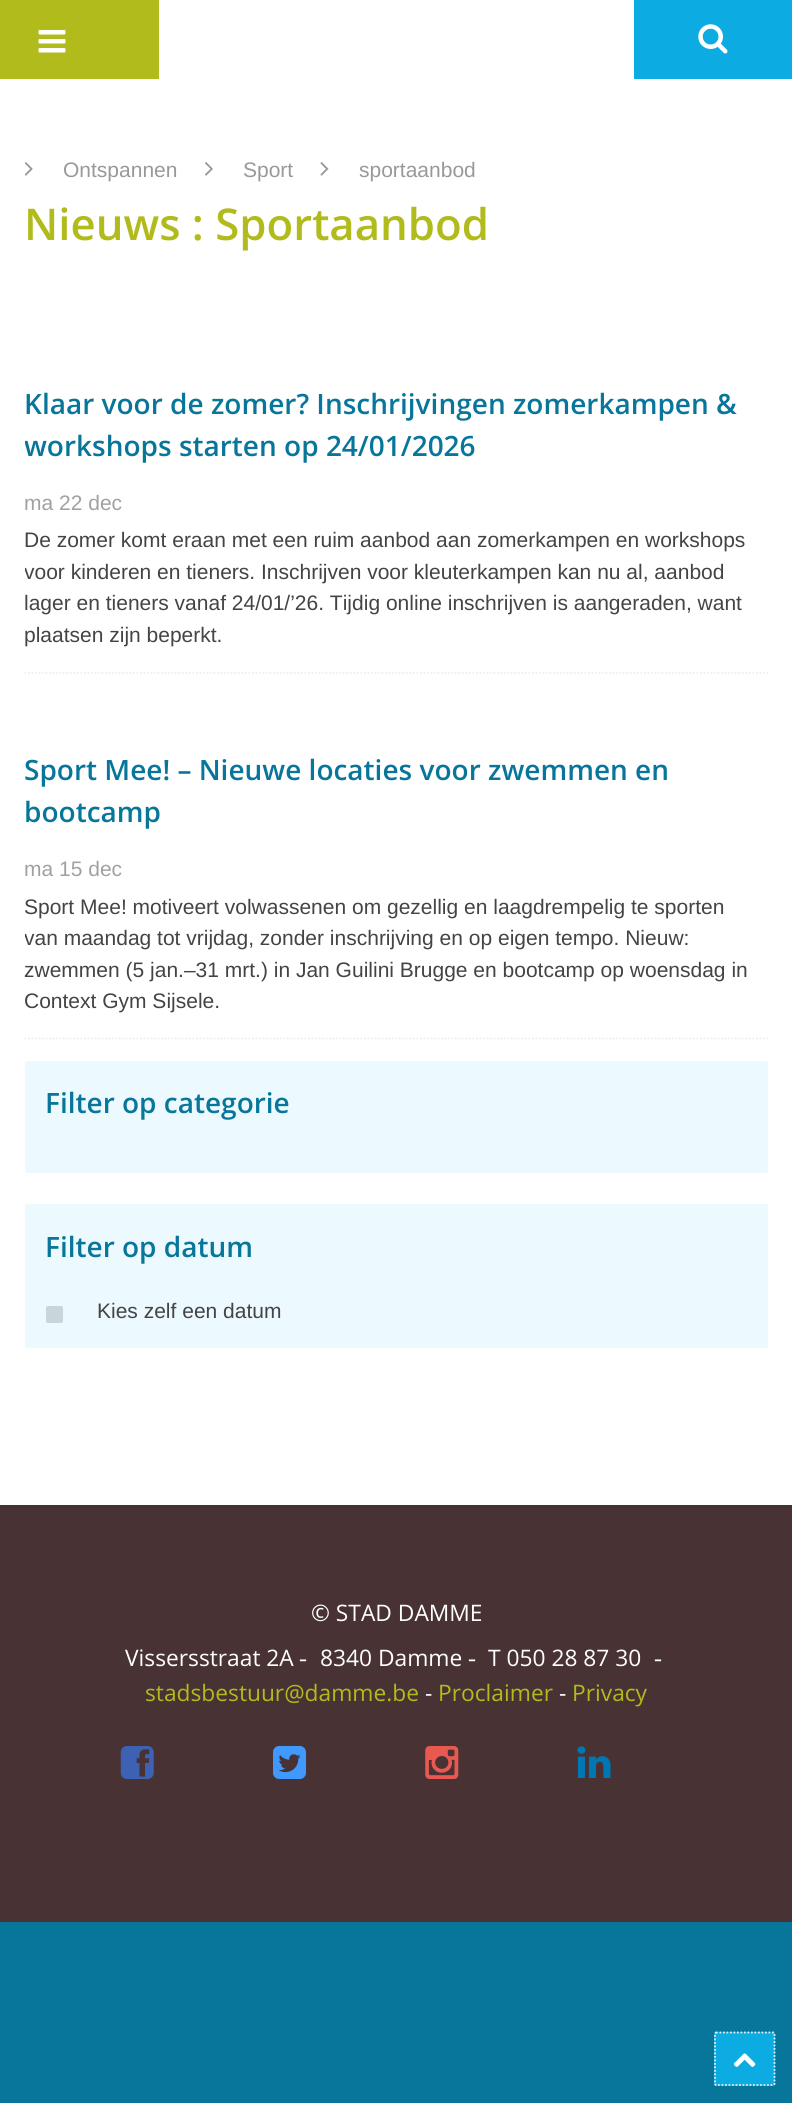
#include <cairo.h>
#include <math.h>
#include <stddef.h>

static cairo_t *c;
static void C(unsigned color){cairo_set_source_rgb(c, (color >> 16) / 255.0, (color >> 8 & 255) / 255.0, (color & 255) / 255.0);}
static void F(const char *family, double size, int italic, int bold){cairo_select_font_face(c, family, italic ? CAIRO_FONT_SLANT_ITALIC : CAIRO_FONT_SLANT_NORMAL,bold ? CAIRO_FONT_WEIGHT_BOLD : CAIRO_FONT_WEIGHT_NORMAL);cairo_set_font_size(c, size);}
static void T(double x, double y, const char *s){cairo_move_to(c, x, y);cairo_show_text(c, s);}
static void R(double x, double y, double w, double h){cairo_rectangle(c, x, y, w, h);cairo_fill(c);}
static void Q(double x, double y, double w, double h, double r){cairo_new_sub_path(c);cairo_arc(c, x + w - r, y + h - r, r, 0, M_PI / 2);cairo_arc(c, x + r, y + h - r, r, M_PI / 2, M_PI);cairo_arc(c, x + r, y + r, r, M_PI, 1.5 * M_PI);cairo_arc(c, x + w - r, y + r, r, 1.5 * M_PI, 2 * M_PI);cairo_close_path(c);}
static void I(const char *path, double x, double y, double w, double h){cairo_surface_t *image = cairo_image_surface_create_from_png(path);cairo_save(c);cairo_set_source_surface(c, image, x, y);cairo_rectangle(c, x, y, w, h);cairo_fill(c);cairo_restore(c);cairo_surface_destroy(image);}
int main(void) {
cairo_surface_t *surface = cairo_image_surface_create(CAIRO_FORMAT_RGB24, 792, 2103);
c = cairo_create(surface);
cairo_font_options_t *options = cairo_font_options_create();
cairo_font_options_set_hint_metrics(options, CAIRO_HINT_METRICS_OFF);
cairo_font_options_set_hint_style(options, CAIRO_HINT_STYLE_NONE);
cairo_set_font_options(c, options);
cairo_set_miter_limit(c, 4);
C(0x08769b);
cairo_paint(c);
C(0xffffff);
R(0,79,792,1426);
C(0x0cabe1);
R(634,0,158,79);
C(0xb2bb1c);
R(0,0,159,79);
I("1.png",38,30,28,23);
C(0xffffff);
R(159,0,475,79);
I("2.png",698,24,30,30);
I("3.png",25,162,8,14);
F("Liberation Sans",21,0,0);
C(0x999999);
T(63,177,"Ontspannen");
I("4.png",205,162,8,14);
T(243,177,"Sport");
I("5.png",320,162,9,14);
T(359,177,"sportaanbod");
F("Open Sans SemiBold",43.75,0,0);
C(0xb2bb1c);
T(24,240,"Nieuws : Sportaanbod");
cairo_new_path(c);
cairo_move_to(c,24.5,673);
cairo_line_to(c,768,673);
C(0xebeef0);
cairo_set_line_width(c,1.8);
cairo_set_dash(c,(double[]){1.75,1.75},2,0);
cairo_stroke(c);
F("Open Sans SemiBold",28,0,0);
C(0x08769b);
T(24,414,"Klaar voor de zomer? Inschrijvingen zomerkampen &");
cairo_save(c);
cairo_rectangle(c,25,308,722,364);
cairo_clip(c);
T(24,456,"workshops starten op 24/01/2026");
cairo_restore(c);
F("Liberation Sans",21,0,0);
C(0xa2a19f);
T(24,510,"ma 22 dec");
C(0x444444);
T(24,547,"De zomer komt eraan met een ruim aanbod aan zomerkampen en workshops");
cairo_save(c);
cairo_rectangle(c,25,308,722,364);
cairo_clip(c);
T(24,579,"voor kinderen en tieners. Inschrijven voor kleuterkampen kan nu al, aanbod");
cairo_restore(c);
T(24,610,"lager en tieners vanaf 24/01/’26. Tijdig online inschrijven is aangeraden, want");
T(24,642,"plaatsen zijn beperkt.");
cairo_new_path(c);
cairo_move_to(c,24.5,1038.5);
cairo_line_to(c,768,1038.5);
C(0xebeef0);
cairo_stroke(c);
F("Open Sans SemiBold",28,0,0);
C(0x08769b);
T(24,780,"Sport Mee! – Nieuwe locaties voor zwemmen en");
T(24,822,"bootcamp");
F("Liberation Sans",21,0,0);
C(0xa2a19f);
T(24,876,"ma 15 dec");
C(0x444444);
T(24,914,"Sport Mee! motiveert volwassenen om gezellig en laagdrempelig te sporten");
cairo_save(c);
cairo_rectangle(c,25,674,722,364);
cairo_clip(c);
T(24,945,"van maandag tot vrijdag, zonder inschrijving en op eigen tempo. Nieuw:");
cairo_restore(c);
T(24,977,"zwemmen (5 jan.–31 mrt.) in Jan Guilini Brugge en bootcamp op woensdag in");
cairo_save(c);
cairo_rectangle(c,25,674,722,364);
cairo_clip(c);
T(24,1008,"Context Gym Sijsele.");
cairo_restore(c);
C(0xecf9fe);
Q(25,1061,743,112,2);
cairo_fill(c);
F("Open Sans SemiBold",28,0,0);
C(0x08769b);
T(45,1113,"Filter op categorie");
C(0xecf9fe);
Q(25,1204,743,144,2);
cairo_fill(c);
C(0x08769b);
T(45,1257,"Filter op datum");
C(0xcad5d9);
Q(46,1306,17,17,2);
cairo_fill(c);
F("Liberation Sans",21,0,0);
C(0x444444);
T(97,1318,"Kies zelf een datum");
C(0x483234);
R(0,1507,792,415);
C(0x453032);
R(0,1505,792,2);
F("Open Sans",22.75,0,0);
C(0xffffff);
T(311,1621,"© STAD DAMME");
T(125,1666,"Vissersstraat 2A");
F("Liberation Serif",24,0,0);
T(299,1666,"-");
F("Open Sans",22.75,0,0);
T(320,1666,"8340 Damme");
F("Liberation Serif",24,0,0);
T(468,1666,"-");
F("Open Sans",22.75,0,0);
T(488,1666,"T 050 28 87 30");
F("Liberation Serif",24,0,0);
T(654,1666,"-");
F("Open Sans",22.75,0,0);
C(0xb2bb1c);
T(145,1701,"stadsbestuur@damme.be");
C(0xffffff);
T(425,1701,"-");
C(0xb2bb1c);
T(438,1701,"Proclaimer");
C(0xffffff);
T(559,1701,"-");
C(0xb2bb1c);
T(572,1701,"Privacy");
I("6.png",120,1746,34,33);
I("7.png",273,1746,33,33);
I("8.png",425,1746,34,33);
I("9.png",577,1746,34,32);
C(0x0cabe1);
Q(714,2032,61,54,2);
cairo_fill(c);
cairo_new_path(c);
cairo_move_to(c,716,2032.5);
cairo_line_to(c,773.5,2032.5);
cairo_line_to(c,774.5,2033.5);
cairo_line_to(c,774.5,2084);
cairo_line_to(c,773.5,2085);
cairo_line_to(c,716,2085);
cairo_line_to(c,715,2084);
cairo_line_to(c,715,2033.5);
cairo_close_path(c);
C(0xebeef0);
cairo_stroke(c);
I("10.png",734,2053,22,14);
cairo_surface_write_to_png(surface, "o.png");
cairo_font_options_destroy(options);
cairo_destroy(c);
cairo_surface_destroy(surface);
return 0;
}
